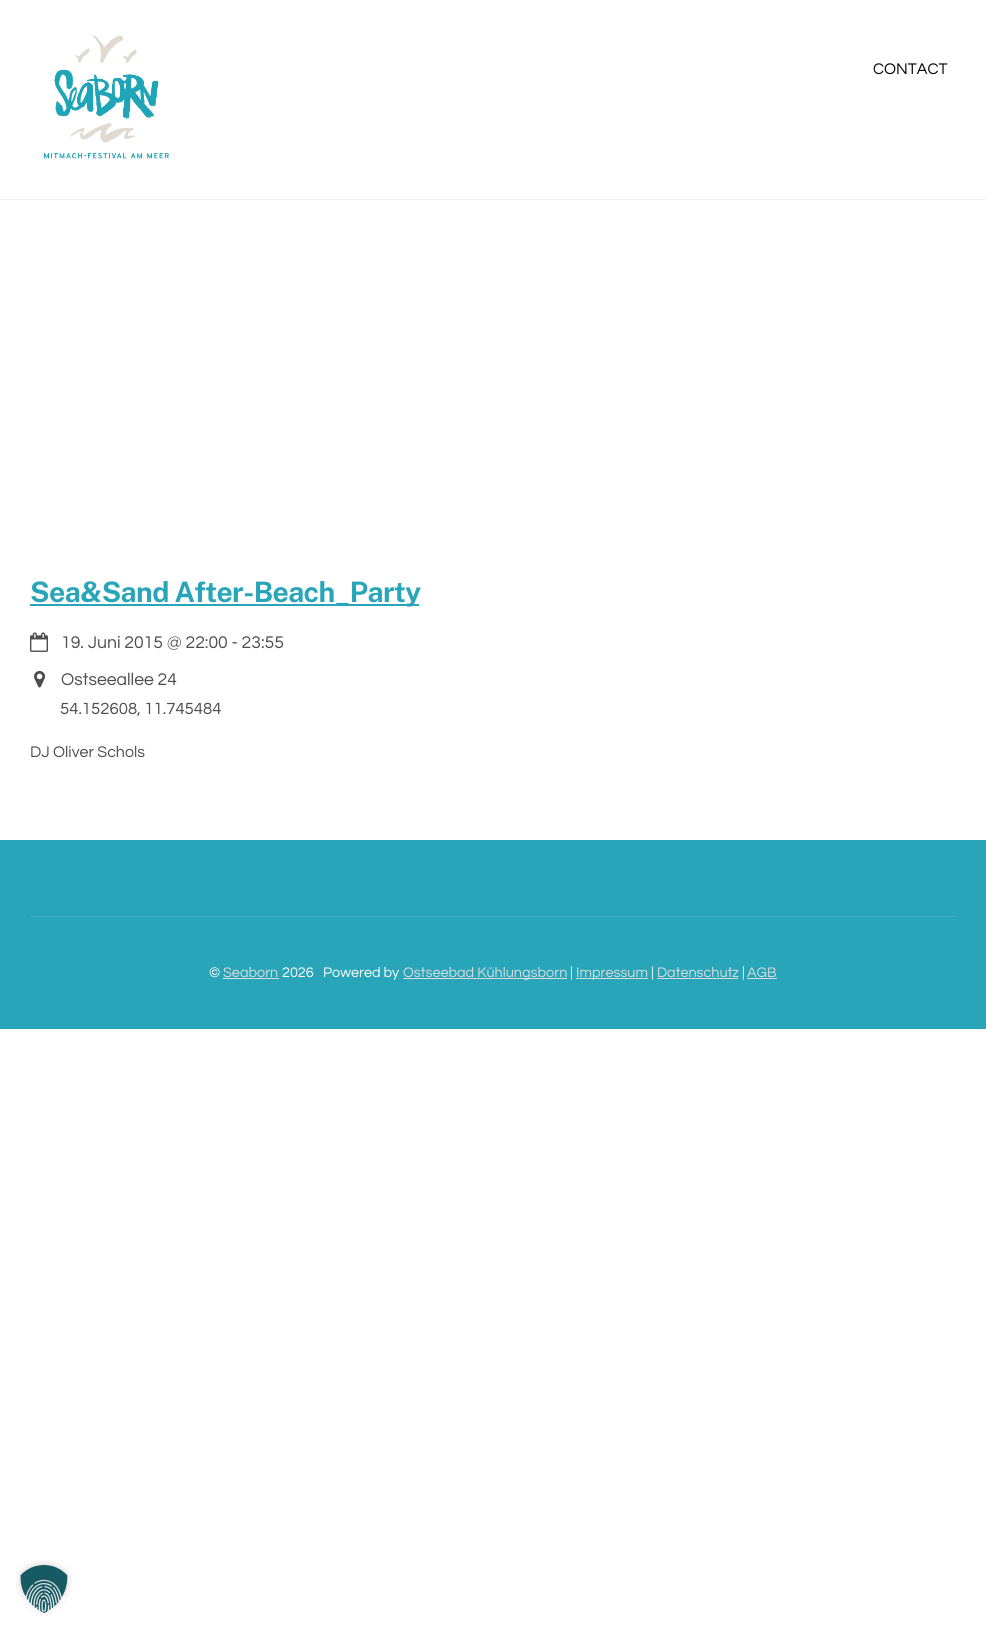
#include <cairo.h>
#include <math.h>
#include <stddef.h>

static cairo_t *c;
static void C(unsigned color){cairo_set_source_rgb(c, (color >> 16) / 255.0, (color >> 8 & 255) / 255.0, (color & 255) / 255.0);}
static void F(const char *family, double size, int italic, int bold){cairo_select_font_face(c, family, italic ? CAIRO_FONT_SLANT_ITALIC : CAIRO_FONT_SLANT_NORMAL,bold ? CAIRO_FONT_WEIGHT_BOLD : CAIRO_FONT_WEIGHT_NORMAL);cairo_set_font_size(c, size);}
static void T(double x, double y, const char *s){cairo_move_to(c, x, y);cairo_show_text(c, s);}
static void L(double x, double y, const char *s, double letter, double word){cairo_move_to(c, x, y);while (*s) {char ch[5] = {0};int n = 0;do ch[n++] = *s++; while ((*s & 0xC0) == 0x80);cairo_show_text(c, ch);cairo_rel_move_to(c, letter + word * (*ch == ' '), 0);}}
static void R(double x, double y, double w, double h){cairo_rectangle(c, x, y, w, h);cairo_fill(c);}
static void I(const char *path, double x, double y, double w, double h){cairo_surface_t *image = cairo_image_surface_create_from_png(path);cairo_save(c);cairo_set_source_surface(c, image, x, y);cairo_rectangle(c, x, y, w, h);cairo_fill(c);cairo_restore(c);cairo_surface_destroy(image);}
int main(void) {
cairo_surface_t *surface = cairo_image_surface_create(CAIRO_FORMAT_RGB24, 986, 1633);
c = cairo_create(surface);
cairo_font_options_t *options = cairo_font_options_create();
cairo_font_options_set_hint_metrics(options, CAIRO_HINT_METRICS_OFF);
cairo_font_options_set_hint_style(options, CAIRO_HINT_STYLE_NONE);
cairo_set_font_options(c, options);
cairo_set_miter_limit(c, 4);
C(0xffffff);
cairo_paint(c);
C(0xf2f2f2);
R(0,199,986,1);
I("1.png",44,35,125,124);
F("Questrial",16,0,0);
C(0x000000);
T(873,74,"CONTACT");
C(0x28a5b8);
R(30,604,389,2);
F("Public Sans",28.2,0,1);
L(30,602,"Sea&Sand After-Beach_Party",-.55,0);
I("2.png",30,632,18,20);
F("Questrial",17.6,0,0);
C(0x4d4d4d);
T(61,648,"19. Juni 2015 @ 22:00 - 23:55");
I("3.png",34,670,12,18);
T(61,685,"Ostseeallee 24");
F("Questrial",16.75,0,0);
T(60,714,"54.152608, 11.745484");
F("Questrial",16,0,0);
T(30,757,"DJ Oliver Schols");
C(0x28a5b8);
R(0,840,986,189);
C(0x3eaebf);
R(30,916,926,1);
F("Questrial",14.4,0,0);
C(0xffffff);
T(209,977,"©");
C(0xdbdbdb);
T(223,977,"Seaborn");
R(223,978,56,1);
C(0xffffff);
T(282,977,"2026");
T(323,977,"Powered by");
C(0xdbdbdb);
R(403,978,164,1);
T(403,977,"Ostseebad Kühlungsborn");
C(0xffffff);
T(570,977,"|");
C(0xdbdbdb);
R(576,978,72,1);
T(576,977,"Impressum");
C(0xffffff);
T(651,977,"|");
C(0xdbdbdb);
T(657,977,"Datenschutz");
R(657,978,81,1);
C(0xffffff);
T(742,977,"|");
C(0xdbdbdb);
T(747,977,"AGB");
R(747,978,30,1);
I("4.png",16,1560,56,55);
cairo_surface_write_to_png(surface, "o.png");
cairo_font_options_destroy(options);
cairo_destroy(c);
cairo_surface_destroy(surface);
return 0;
}
